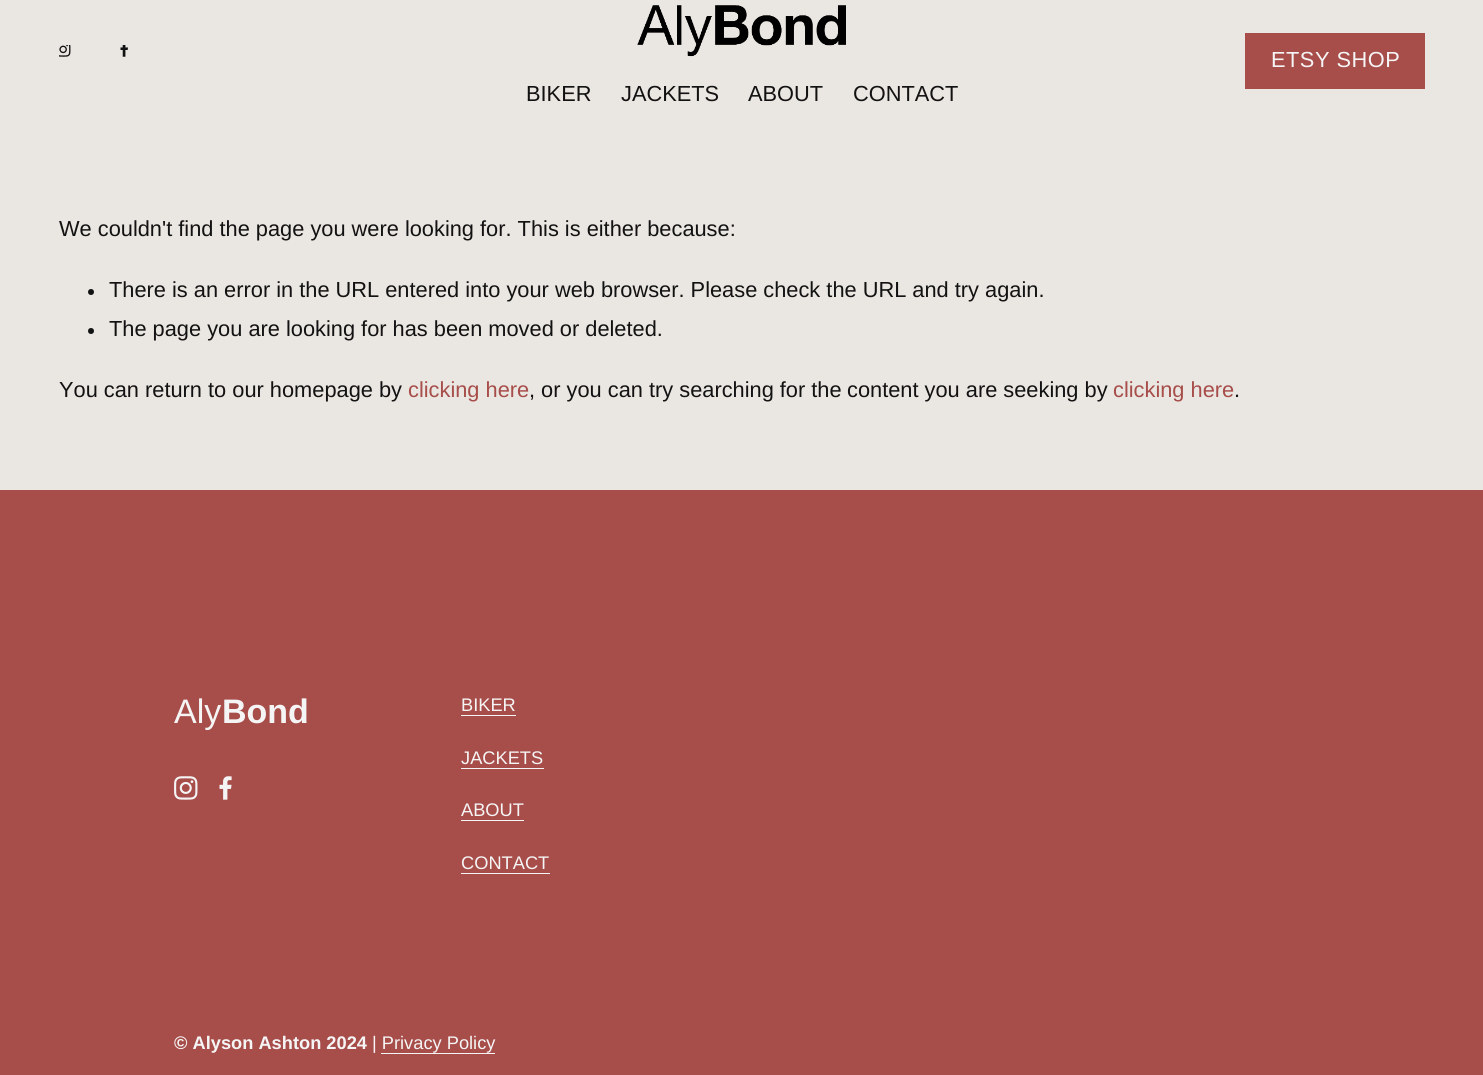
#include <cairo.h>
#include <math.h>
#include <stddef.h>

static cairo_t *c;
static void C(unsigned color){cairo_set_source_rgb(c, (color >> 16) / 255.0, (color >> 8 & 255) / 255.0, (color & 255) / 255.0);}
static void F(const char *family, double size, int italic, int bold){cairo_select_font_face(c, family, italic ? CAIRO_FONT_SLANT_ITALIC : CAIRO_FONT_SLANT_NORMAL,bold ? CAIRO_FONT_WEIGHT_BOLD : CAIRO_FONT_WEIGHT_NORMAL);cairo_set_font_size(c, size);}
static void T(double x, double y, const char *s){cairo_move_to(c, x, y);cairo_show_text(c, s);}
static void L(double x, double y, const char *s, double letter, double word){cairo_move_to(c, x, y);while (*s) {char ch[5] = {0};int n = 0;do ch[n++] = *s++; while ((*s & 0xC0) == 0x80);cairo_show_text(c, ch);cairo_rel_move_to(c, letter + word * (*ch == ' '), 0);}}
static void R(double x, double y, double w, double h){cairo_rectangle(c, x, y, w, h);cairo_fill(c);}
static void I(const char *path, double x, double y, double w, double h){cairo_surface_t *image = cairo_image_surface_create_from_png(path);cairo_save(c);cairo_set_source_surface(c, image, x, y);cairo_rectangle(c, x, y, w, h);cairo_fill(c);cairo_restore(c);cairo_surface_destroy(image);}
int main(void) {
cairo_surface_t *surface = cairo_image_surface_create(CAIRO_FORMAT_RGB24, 1483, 1075);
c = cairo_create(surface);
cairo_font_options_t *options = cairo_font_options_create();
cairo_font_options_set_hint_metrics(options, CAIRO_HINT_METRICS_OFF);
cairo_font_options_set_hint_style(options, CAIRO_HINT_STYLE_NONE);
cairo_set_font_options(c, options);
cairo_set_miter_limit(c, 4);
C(0xeae6e1);
cairo_paint(c);
I("1.png",59,45,12,12);
I("2.png",120,45,8,12);
C(0xa74d4a);
R(1245,33,180,56);
F("Liberation Sans",21.8,0,0);
C(0xf5f5f5);
L(1271,67,"ETSY SHOP",.5,0);
I("3.png",637,5,209,52);
C(0x121212);
T(526,101,"BIKER");
T(621,101,"JACKETS");
T(748,101,"ABOUT");
T(853,101,"CONTACT");
T(59,236,"We couldn't find the page you were looking for. This is either because:");
cairo_new_path(c);
cairo_arc(c,91,292,3,0,2 * M_PI);
cairo_fill(c);
T(109,297,"There is an error in the URL entered into your web browser. Please check the URL and try again.");
cairo_new_path(c);
cairo_arc(c,91,331,3,0,2 * M_PI);
cairo_fill(c);
T(109,336,"The page you are looking for has been moved or deleted.");
T(59,397,"You can return to our homepage by");
C(0xa74d4a);
T(408,397,"clicking here");
C(0x121212);
T(529,397,", or you can try searching for the");
T(847,397,"content you are seeking by");
C(0xa74d4a);
T(1113,397,"clicking here");
C(0x121212);
T(1234,397,".");
C(0xa74d4a);
R(0,490,1483,585);
F("Liberation Sans",34,0,0);
C(0xf5f5f5);
T(174,723,"Aly");
F("Liberation Sans",34,0,1);
T(222,723,"Bond");
F("Liberation Sans",18.25,0,0);
T(461,711,"BIKER");
R(461,715,55,1);
T(461,764,"JACKETS");
R(461,768,83,1);
T(461,816,"ABOUT");
R(461,820,63,1);
T(461,869,"CONTACT");
R(461,873,89,1);
I("4.png",174,776,24,24);
I("5.png",219,776,13,24);
F("Liberation Sans",18.25,0,1);
T(174,1049,"© Alyson Ashton 2024");
F("Liberation Sans",18.25,0,0);
T(372,1049,"| Privacy Policy");
R(381,1053,114,1);
cairo_surface_write_to_png(surface, "o.png");
cairo_font_options_destroy(options);
cairo_destroy(c);
cairo_surface_destroy(surface);
return 0;
}
